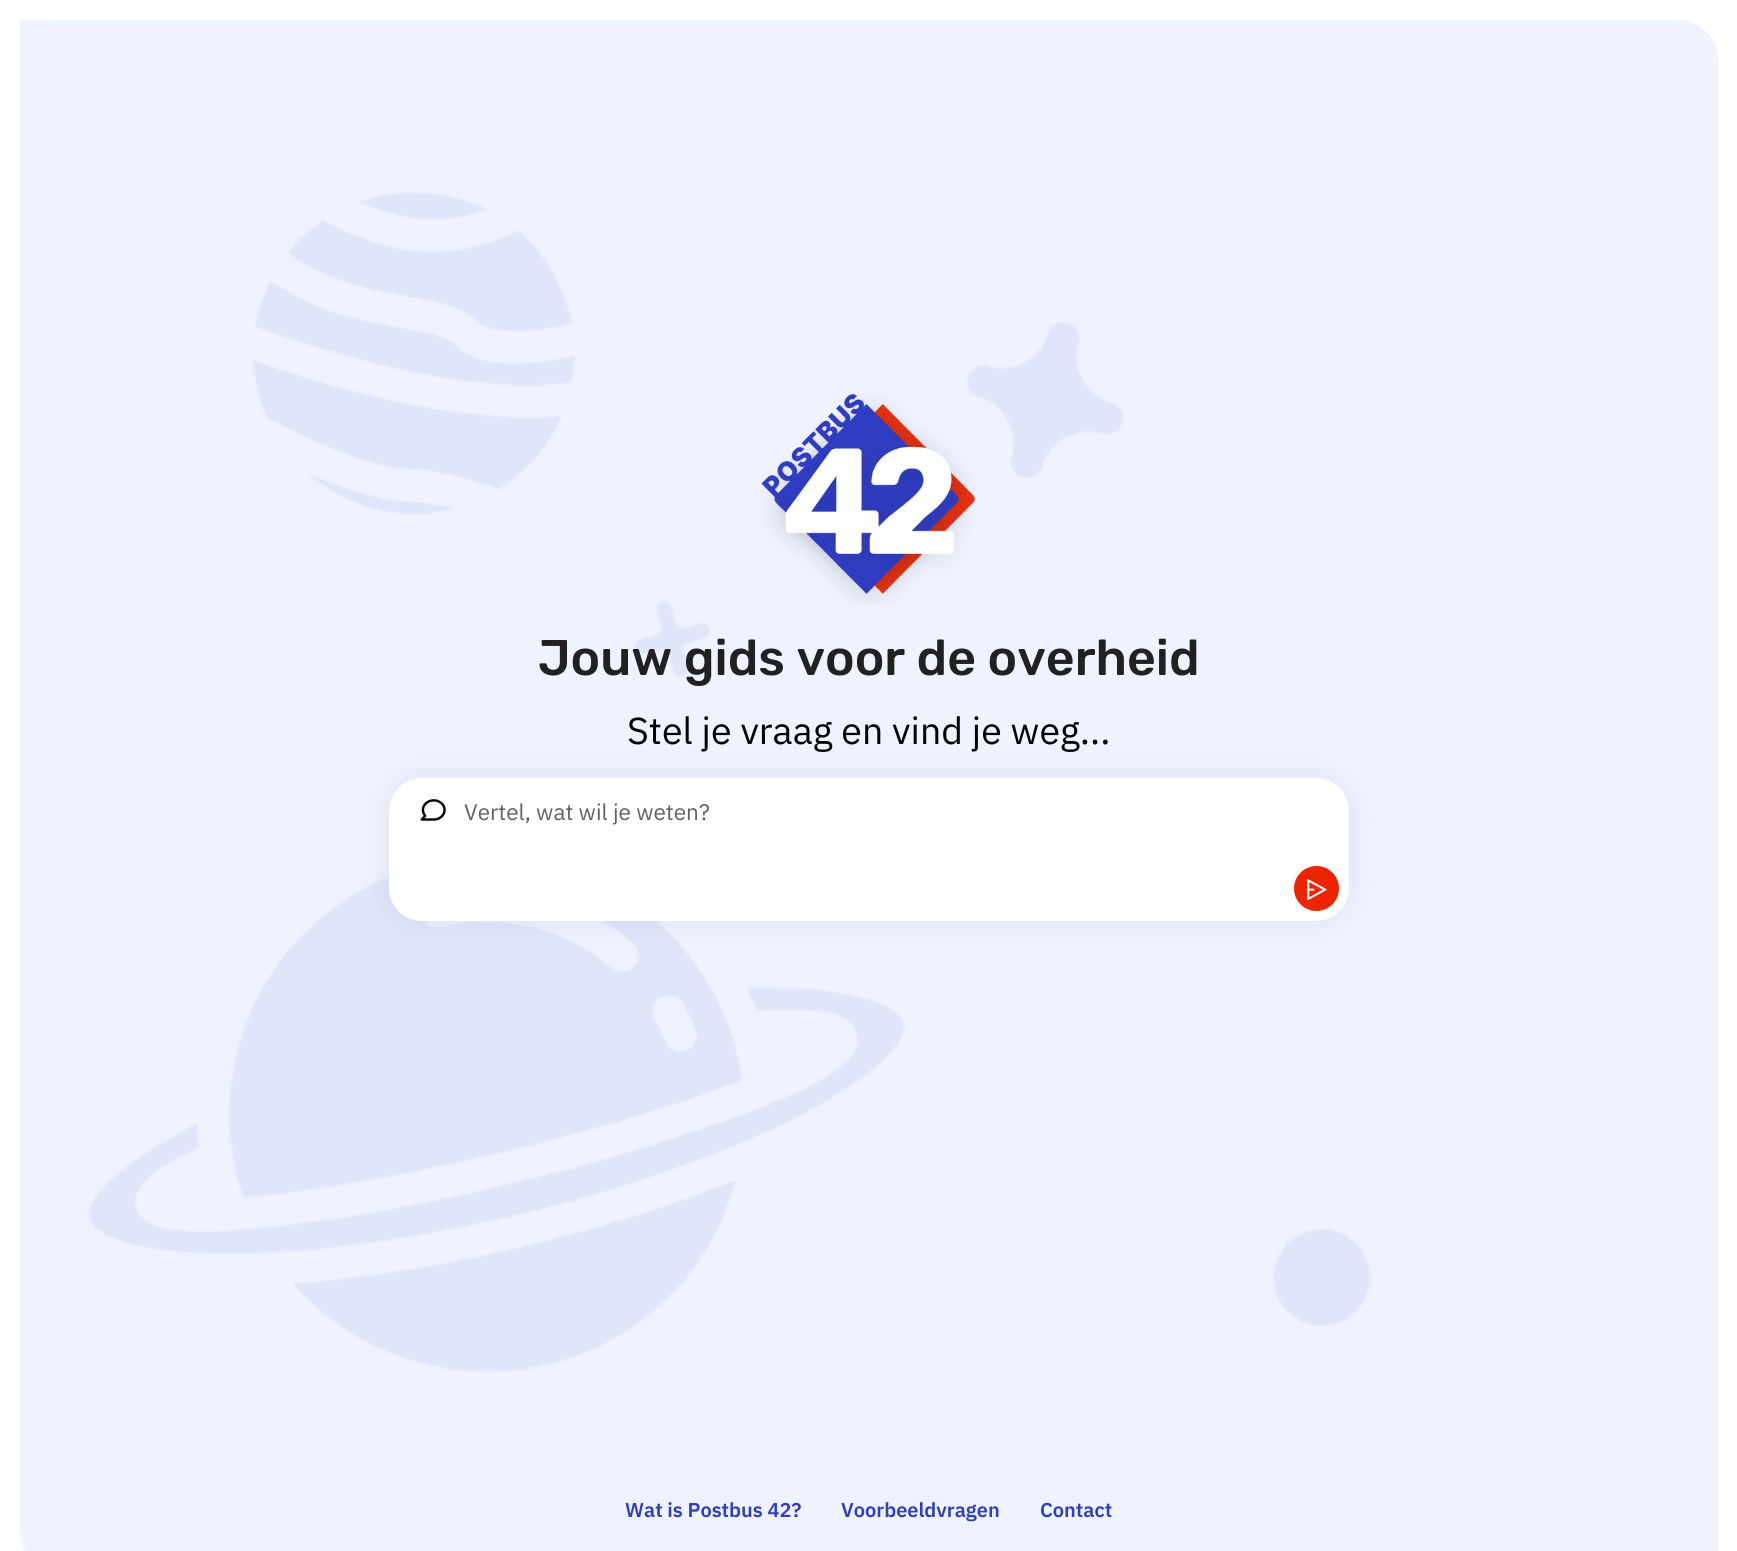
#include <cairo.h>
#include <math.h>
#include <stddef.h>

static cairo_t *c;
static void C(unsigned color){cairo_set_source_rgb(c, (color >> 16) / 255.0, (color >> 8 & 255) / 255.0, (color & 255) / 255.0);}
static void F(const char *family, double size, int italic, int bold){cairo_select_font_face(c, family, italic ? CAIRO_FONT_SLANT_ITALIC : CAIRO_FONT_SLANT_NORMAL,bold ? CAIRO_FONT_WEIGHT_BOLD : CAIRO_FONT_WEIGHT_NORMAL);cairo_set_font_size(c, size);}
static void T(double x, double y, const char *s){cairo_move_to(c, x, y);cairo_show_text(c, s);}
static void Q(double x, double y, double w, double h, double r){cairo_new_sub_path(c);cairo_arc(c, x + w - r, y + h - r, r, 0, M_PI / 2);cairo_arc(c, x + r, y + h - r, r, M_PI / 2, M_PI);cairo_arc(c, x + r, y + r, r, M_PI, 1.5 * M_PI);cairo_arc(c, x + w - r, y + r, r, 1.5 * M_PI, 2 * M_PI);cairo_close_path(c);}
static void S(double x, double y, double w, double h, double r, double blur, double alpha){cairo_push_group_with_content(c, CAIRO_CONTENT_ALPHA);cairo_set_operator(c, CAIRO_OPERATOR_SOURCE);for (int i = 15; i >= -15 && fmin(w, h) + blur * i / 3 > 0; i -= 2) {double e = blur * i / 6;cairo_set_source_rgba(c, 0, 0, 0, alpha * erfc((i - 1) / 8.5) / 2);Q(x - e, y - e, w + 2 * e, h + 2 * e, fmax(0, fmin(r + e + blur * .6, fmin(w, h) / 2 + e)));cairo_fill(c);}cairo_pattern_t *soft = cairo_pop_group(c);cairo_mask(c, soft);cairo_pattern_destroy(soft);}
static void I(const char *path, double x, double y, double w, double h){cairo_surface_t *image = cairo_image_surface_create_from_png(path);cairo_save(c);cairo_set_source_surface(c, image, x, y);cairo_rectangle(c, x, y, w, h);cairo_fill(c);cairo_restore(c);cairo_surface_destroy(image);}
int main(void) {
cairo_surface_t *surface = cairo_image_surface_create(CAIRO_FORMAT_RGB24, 1737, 1551);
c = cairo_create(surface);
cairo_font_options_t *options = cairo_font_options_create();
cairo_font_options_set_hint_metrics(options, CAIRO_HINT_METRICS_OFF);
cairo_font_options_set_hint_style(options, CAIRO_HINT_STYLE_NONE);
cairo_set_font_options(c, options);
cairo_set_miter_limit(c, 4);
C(0xffffff);
cairo_paint(c);
C(0xeff3ff);
cairo_new_path(c);
cairo_move_to(c,20,20);
cairo_line_to(c,1678,20);
cairo_curve_to(c,1700,20,1718,38,1718,60);
cairo_line_to(c,1718,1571);
cairo_line_to(c,60,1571);
cairo_curve_to(c,38,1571,20,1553,20,1531);
cairo_close_path(c);
cairo_fill(c);
I("1.png",88,192,1283,1181);
I("2.png",761,394,214,211);
F("Rubik Medium",50,0,0);
C(0x212121);
T(538,675,"Jouw gids voor de overheid");
F("IBM Plex Sans",37.5,0,0);
C(0x040404);
T(627,744,"Stel je vraag en vind je weg...");
C(0x252a59);
S(389,778,960,143,33,15,.1);
C(0xffffff);
Q(389,778,960,143,33);
cairo_fill(c);
I("3.png",420,799,26,22);
F("IBM Plex Sans",22.5,0,0);
C(0x616161);
T(464,820,"Vertel, wat wil je weten?");
C(0xec2400);
cairo_new_path(c);
cairo_arc(c,1316.5,888.5,22.5,0,2 * M_PI);
cairo_fill(c);
I("4.png",1307,879,20,22);
F("IBM Plex Sans SemiBold",20,0,0);
C(0x303dc3);
T(625,1517,"Wat is Postbus 42?");
T(841,1517,"Voorbeeldvragen");
T(1040,1517,"Contact");
cairo_surface_write_to_png(surface, "o.png");
cairo_font_options_destroy(options);
cairo_destroy(c);
cairo_surface_destroy(surface);
return 0;
}
